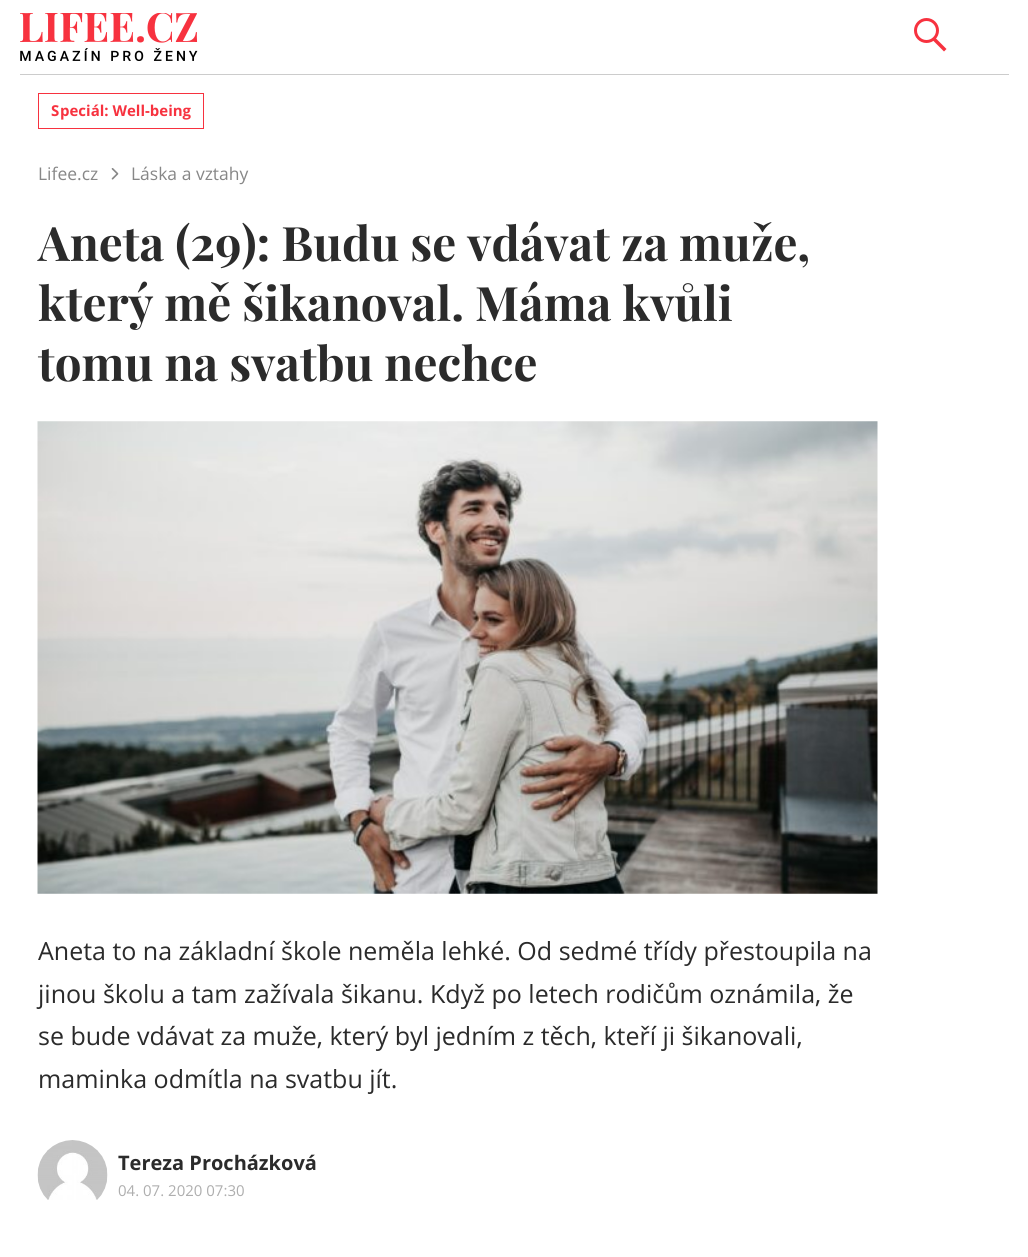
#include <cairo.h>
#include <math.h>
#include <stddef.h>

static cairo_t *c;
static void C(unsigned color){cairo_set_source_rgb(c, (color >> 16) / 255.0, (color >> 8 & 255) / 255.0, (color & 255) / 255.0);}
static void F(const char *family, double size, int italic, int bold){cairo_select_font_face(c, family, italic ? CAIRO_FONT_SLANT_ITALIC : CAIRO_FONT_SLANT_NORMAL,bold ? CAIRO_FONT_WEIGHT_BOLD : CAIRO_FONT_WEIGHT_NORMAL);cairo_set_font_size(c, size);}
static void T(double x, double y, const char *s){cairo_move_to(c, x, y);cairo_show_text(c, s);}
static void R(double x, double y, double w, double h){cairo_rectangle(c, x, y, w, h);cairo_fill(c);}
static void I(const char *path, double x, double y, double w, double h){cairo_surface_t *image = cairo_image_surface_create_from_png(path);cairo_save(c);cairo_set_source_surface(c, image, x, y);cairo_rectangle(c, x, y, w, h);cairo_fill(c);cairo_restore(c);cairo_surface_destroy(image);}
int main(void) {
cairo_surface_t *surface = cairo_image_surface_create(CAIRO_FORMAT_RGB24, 1028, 1257);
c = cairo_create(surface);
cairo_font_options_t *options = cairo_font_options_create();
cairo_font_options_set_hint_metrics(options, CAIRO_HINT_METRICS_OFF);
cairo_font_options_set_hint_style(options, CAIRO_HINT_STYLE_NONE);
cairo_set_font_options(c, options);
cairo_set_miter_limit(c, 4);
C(0xffffff);
cairo_paint(c);
C(0xcccccc);
R(20,74,989,1);
I("1.png",20,13,178,48);
cairo_arc(c,926.5,30.5,11,0,2 * M_PI);
C(0xf7323f);
cairo_set_line_width(c,3);
cairo_stroke(c);
cairo_new_path(c);
cairo_move_to(c,935,37.5);
cairo_line_to(c,946.5,49);
cairo_line_to(c,944,51.5);
cairo_line_to(c,932.5,40);
cairo_close_path(c);
cairo_fill(c);
cairo_rectangle(c,38.5,93.5,165,35);
cairo_set_line_width(c,1);
cairo_stroke(c);
F("Noto Sans",15,0,1);
T(51,116,"S");
F("Open Sans",15,0,1);
T(60,116,"peciál: Well-being");
F("Open Sans",17.5,0,0);
C(0x878787);
T(38,180,"Lifee.cz");
I("2.png",111,168,8,12);
T(131,180,"Láska a vztahy");
F("Playfair Display",47.5,0,1);
C(0x2b2b2b);
T(38,261,"Aneta (29): Budu se vdávat za muže,");
T(38,321,"který mě šikanoval. Máma kvůli");
T(38,381,"tomu na svatbu nechce");
I("3.png",37,421,841,473);
F("Open Sans",25,0,0);
T(38,960,"Aneta to na základní škole neměla lehké. Od sedmé třídy přestoupila na");
T(38,1003,"jinou školu a tam zažívala šikanu. Když po letech rodičům oznámila, že");
T(38,1045,"se bude vdávat za muže, který byl jedním z těch, kteří ji šikanovali,");
T(38,1088,"maminka odmítla na svatbu jít.");
I("4.png",37,1140,71,60);
F("Open Sans",20,0,1);
T(118,1170,"Tereza Procházková");
F("Open Sans",15,0,0);
C(0xaeaeae);
T(118,1196,"04. 07. 2020 07:30");
cairo_surface_write_to_png(surface, "o.png");
cairo_font_options_destroy(options);
cairo_destroy(c);
cairo_surface_destroy(surface);
return 0;
}
